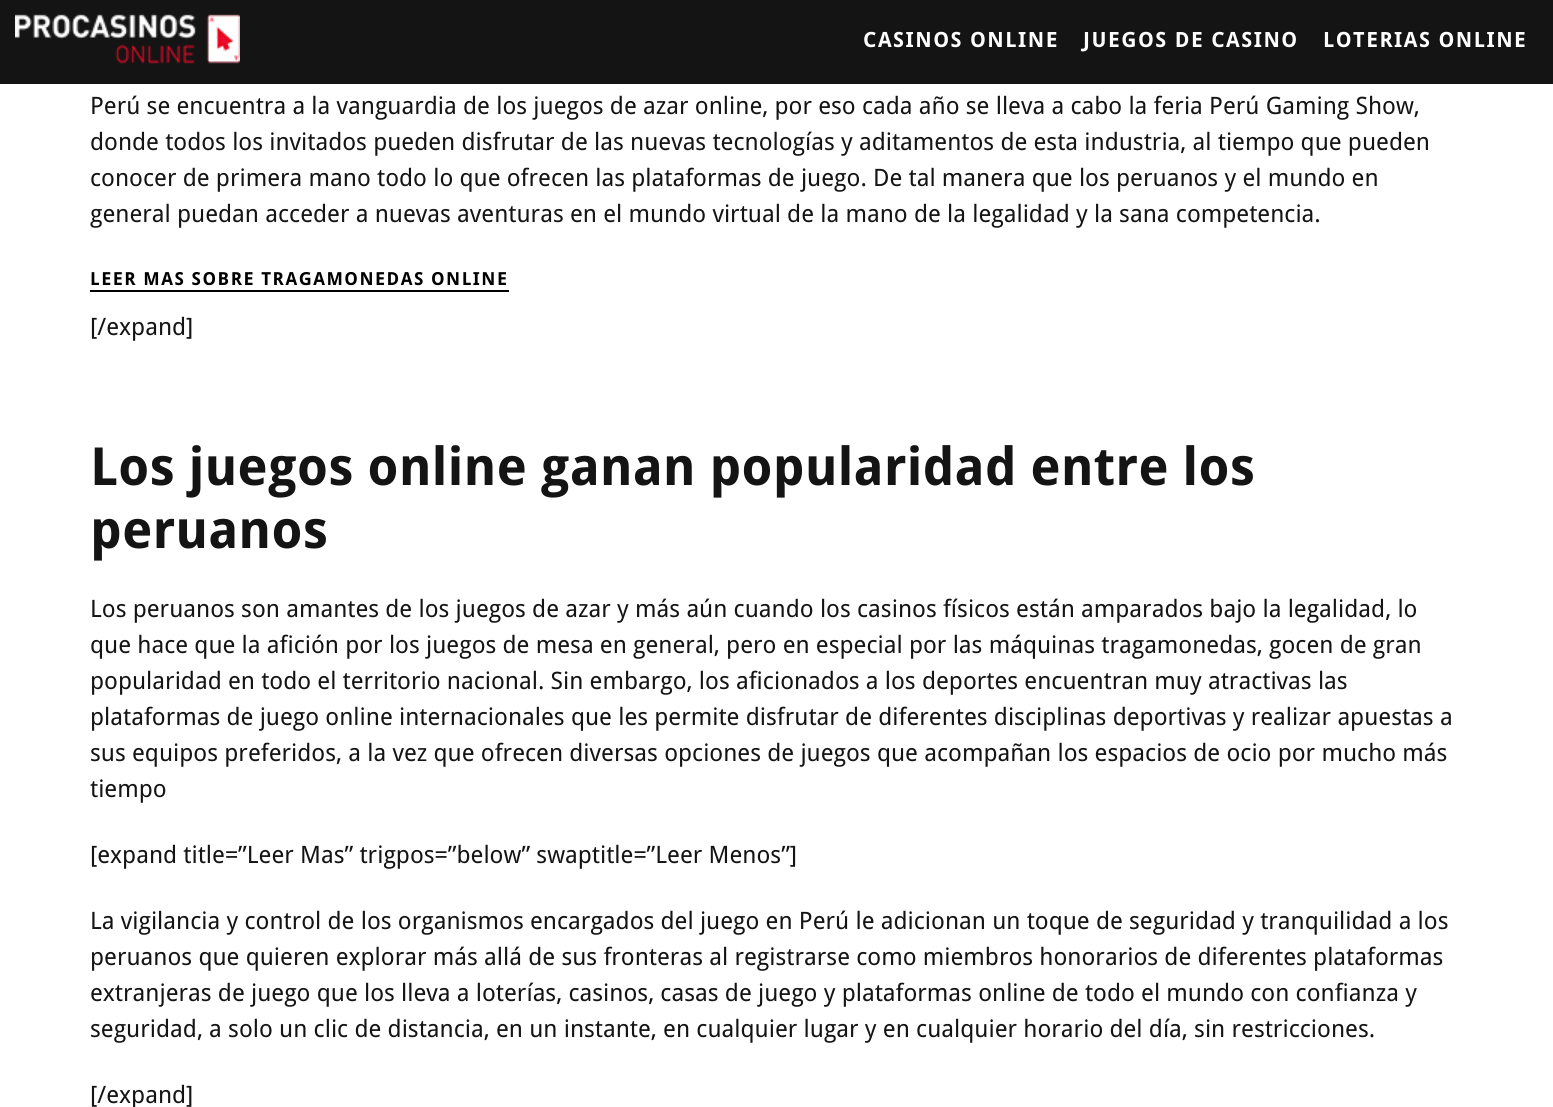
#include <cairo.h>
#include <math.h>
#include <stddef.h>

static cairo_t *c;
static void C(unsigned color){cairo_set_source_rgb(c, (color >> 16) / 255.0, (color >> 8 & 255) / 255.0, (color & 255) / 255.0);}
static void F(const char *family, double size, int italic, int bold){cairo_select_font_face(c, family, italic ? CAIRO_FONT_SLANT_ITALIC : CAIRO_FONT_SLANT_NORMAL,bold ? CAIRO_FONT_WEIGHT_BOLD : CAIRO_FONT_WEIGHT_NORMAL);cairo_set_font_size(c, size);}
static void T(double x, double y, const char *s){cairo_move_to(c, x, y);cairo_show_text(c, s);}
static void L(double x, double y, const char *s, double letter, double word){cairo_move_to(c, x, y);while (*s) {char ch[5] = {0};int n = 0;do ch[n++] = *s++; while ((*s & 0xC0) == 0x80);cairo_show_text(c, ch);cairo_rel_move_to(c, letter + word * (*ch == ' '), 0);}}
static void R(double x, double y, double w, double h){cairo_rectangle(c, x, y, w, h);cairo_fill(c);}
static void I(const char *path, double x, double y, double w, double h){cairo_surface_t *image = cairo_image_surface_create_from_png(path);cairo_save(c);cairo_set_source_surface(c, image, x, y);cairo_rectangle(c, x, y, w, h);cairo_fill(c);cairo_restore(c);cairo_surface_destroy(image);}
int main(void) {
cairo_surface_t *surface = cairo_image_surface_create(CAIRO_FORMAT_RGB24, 1553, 1107);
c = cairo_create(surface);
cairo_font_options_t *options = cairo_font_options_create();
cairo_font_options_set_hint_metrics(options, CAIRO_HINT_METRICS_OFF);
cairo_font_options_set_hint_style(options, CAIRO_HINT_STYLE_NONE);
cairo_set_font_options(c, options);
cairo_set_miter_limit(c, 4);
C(0xffffff);
cairo_paint(c);
C(0x141414);
R(0,0,1553,84);
I("1.png",15,14,225,50);
F("Droid Sans",21,0,1);
C(0xffffff);
L(863,47,"CASINOS ONLINE",1.5,0);
L(1083,47,"JUEGOS DE CASINO",1.5,0);
L(1323,47,"LOTERIAS ONLINE",1.5,0);
F("Droid Sans",24,0,0);
C(0x141414);
T(90,114,"Perú se encuentra a la vanguardia de los juegos de azar online, por eso cada año se lleva a cabo la feria Perú Gaming Show,");
T(90,150,"donde todos los invitados pueden disfrutar de las nuevas tecnologías y aditamentos de esta industria, al tiempo que pueden");
T(90,186,"conocer de primera mano todo lo que ofrecen las plataformas de juego. De tal manera que los peruanos y el mundo en");
T(90,222,"general puedan acceder a nuevas aventuras en el mundo virtual de la mano de la legalidad y la sana competencia.");
C(0x000000);
R(90,290,419,2);
F("Droid Sans",18,0,1);
L(90,285,"LEER MAS SOBRE TRAGAMONEDAS ONLINE",1.5,0);
F("Droid Sans",24,0,0);
C(0x141414);
T(90,335,"[/expand]");
F("Droid Sans",52.5,0,1);
T(90,485,"Los juegos online ganan popularidad entre los");
T(90,548,"peruanos");
F("Droid Sans",24,0,0);
T(90,617,"Los peruanos son amantes de los juegos de azar y más aún cuando los casinos físicos están amparados bajo la legalidad, lo");
T(90,653,"que hace que la afición por los juegos de mesa en general, pero en especial por las máquinas tragamonedas, gocen de gran");
T(90,689,"popularidad en todo el territorio nacional. Sin embargo, los aficionados a los deportes encuentran muy atractivas las");
T(90,725,"plataformas de juego online internacionales que les permite disfrutar de diferentes disciplinas deportivas y realizar apuestas a");
T(90,761,"sus equipos preferidos, a la vez que ofrecen diversas opciones de juegos que acompañan los espacios de ocio por mucho más");
T(90,797,"tiempo");
T(90,863,"[expand title=”Leer Mas” trigpos=”below” swaptitle=”Leer Menos”]");
T(90,929,"La vigilancia y control de los organismos encargados del juego en Perú le adicionan un toque de seguridad y tranquilidad a los");
T(90,965,"peruanos que quieren explorar más allá de sus fronteras al registrarse como miembros honorarios de diferentes plataformas");
T(90,1001,"extranjeras de juego que los lleva a loterías, casinos, casas de juego y plataformas online de todo el mundo con confianza y");
T(90,1037,"seguridad, a solo un clic de distancia, en un instante, en cualquier lugar y en cualquier horario del día, sin restricciones.");
T(90,1103,"[/expand]");
cairo_surface_write_to_png(surface, "o.png");
cairo_font_options_destroy(options);
cairo_destroy(c);
cairo_surface_destroy(surface);
return 0;
}
